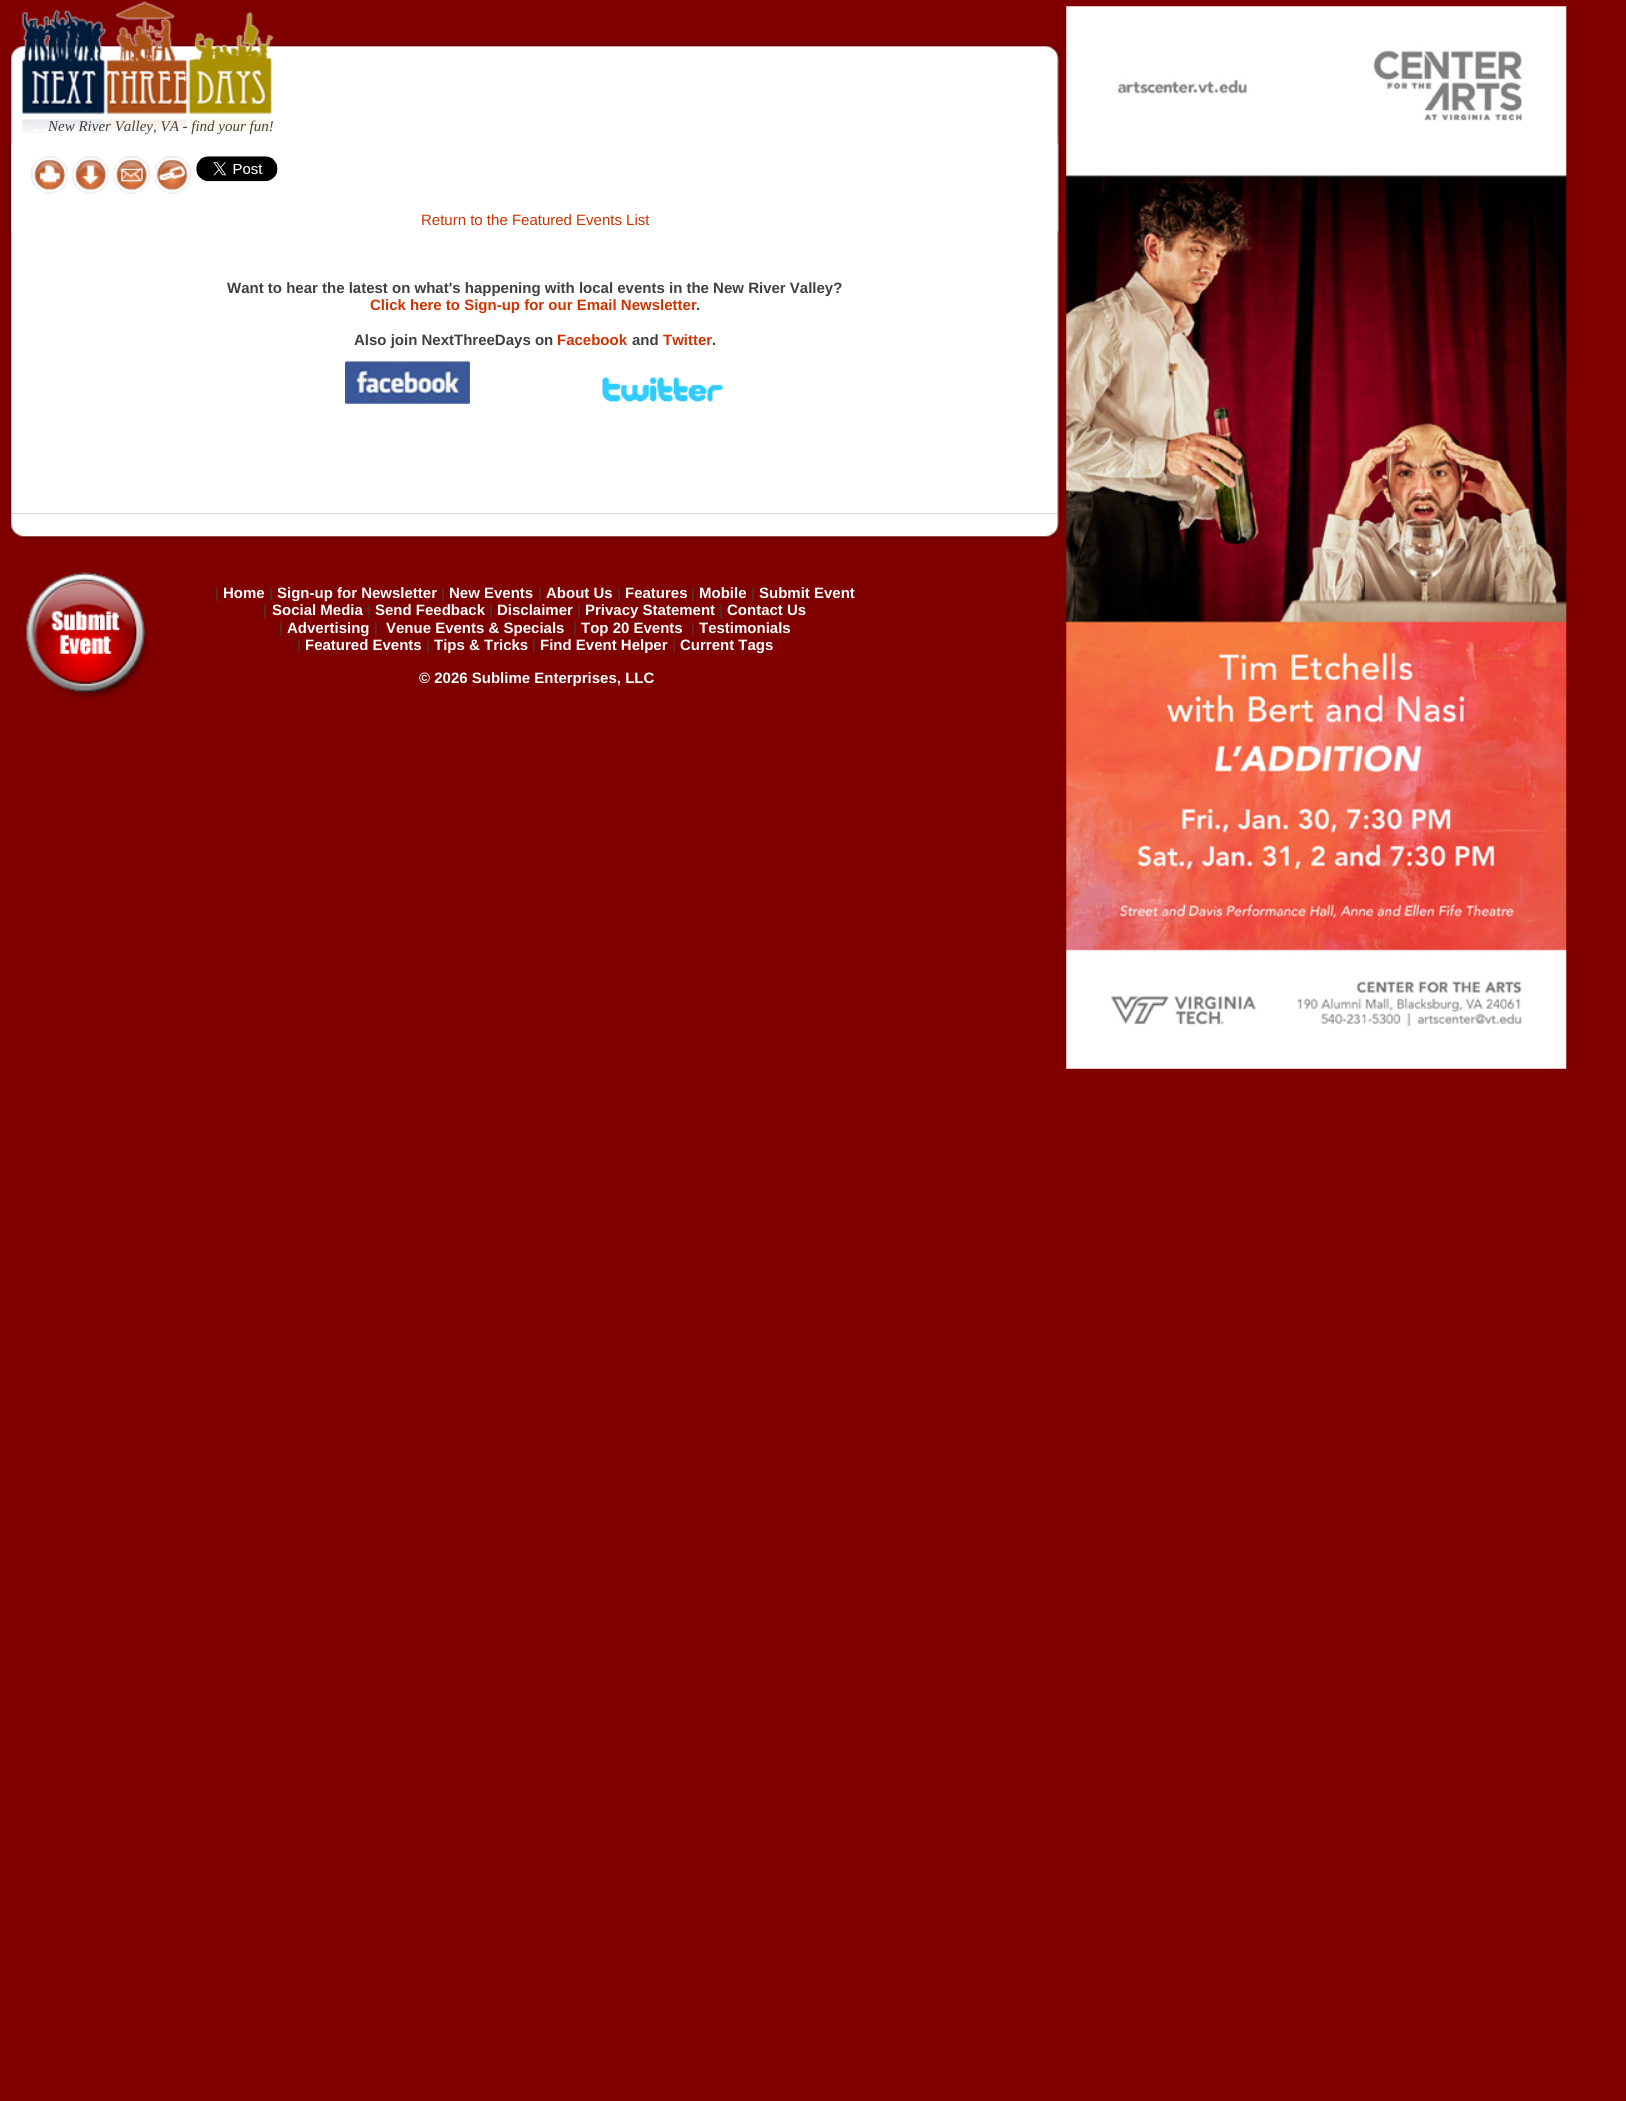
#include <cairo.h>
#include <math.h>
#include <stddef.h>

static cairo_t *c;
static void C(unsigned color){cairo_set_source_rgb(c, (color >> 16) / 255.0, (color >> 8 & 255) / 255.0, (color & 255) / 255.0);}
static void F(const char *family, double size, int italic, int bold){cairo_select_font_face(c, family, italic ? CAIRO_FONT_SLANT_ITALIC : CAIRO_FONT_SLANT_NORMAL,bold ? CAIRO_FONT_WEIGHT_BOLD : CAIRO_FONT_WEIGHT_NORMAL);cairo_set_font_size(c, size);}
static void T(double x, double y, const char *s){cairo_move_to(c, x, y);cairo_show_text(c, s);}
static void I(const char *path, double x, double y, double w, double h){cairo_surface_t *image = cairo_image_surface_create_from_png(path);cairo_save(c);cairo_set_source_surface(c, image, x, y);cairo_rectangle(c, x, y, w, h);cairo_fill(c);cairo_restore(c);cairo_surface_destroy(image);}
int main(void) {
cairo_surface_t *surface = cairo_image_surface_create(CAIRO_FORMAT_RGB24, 1626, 2101);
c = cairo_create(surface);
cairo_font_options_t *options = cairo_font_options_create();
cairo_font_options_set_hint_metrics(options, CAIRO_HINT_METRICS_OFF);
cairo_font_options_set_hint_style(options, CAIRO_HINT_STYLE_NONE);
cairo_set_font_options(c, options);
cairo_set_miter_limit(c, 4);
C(0x800000);
cairo_paint(c);
I("1.png",7,44,1055,188);
F("Liberation Serif",15,1,0);
C(0x404040);
T(48,131,"New River Valley, VA - find your fun!");
I("2.png",21,1,253,132);
I("3.png",7,143,1055,371);
I("4.png",31,156,37,38);
I("5.png",72,156,37,38);
I("6.png",113,156,37,38);
I("7.png",155,156,37,38);
I("8.png",196,156,82,26);
F("Liberation Sans",15,0,0);
C(0xcc3300);
T(421,225,"Return to the Featured Events List");
F("Liberation Sans",15,0,1);
C(0x404040);
T(227,293,"Want to hear the latest on what's happening with local events in the New River Valley?");
C(0xcc3300);
T(370,310,"Click here to Sign-up for our Email Newsletter");
C(0x404040);
T(696,310,".");
T(354,345,"Also join NextThreeDays on");
C(0xcc3300);
T(557,345,"Facebook");
C(0x404040);
T(632,345,"and");
C(0xcc3300);
T(663,345,"Twitter");
C(0x404040);
T(712,345,".");
I("9.png",345,361,125,43);
I("10.png",602,377,121,25);
I("11.png",7,513,1055,27);
I("12.png",26,572,123,126);
F("Liberation Sans",15,0,0);
T(215,598,"|");
F("Liberation Sans",15,0,1);
C(0xffffff);
T(223,598,"Home");
F("Liberation Sans",15,0,0);
C(0x404040);
T(269,598,"|");
F("Liberation Sans",15,0,1);
C(0xffffff);
T(277,598,"Sign-up for Newsletter");
F("Liberation Sans",15,0,0);
C(0x404040);
T(441,598,"|");
F("Liberation Sans",15,0,1);
C(0xffffff);
T(449,598,"New Events");
F("Liberation Sans",15,0,0);
C(0x404040);
T(538,598,"|");
F("Liberation Sans",15,0,1);
C(0xffffff);
T(546,598,"About Us");
F("Liberation Sans",15,0,0);
C(0x404040);
T(617,598,"|");
F("Liberation Sans",15,0,1);
C(0xffffff);
T(625,598,"Features");
F("Liberation Sans",15,0,0);
C(0x404040);
T(691,598,"|");
F("Liberation Sans",15,0,1);
C(0xffffff);
T(699,598,"Mobile");
F("Liberation Sans",15,0,0);
C(0x404040);
T(751,598,"|");
F("Liberation Sans",15,0,1);
C(0xffffff);
T(759,598,"Submit Event");
F("Liberation Sans",15,0,0);
C(0x404040);
T(263,615,"|");
F("Liberation Sans",15,0,1);
C(0xffffff);
T(272,615,"Social Media");
F("Liberation Sans",15,0,0);
C(0x404040);
T(367,615,"|");
F("Liberation Sans",15,0,1);
C(0xffffff);
T(375,615,"Send Feedback");
F("Liberation Sans",15,0,0);
C(0x404040);
T(489,615,"|");
F("Liberation Sans",15,0,1);
C(0xffffff);
T(497,615,"Disclaimer");
F("Liberation Sans",15,0,0);
C(0x404040);
T(577,615,"|");
F("Liberation Sans",15,0,1);
C(0xffffff);
T(585,615,"Privacy Statement");
F("Liberation Sans",15,0,0);
C(0x404040);
T(719,615,"|");
F("Liberation Sans",15,0,1);
C(0xffffff);
T(727,615,"Contact Us");
F("Liberation Sans",15,0,0);
C(0x404040);
T(279,633,"|");
F("Liberation Sans",15,0,1);
C(0xffffff);
T(287,633,"Advertising");
F("Liberation Sans",15,0,0);
C(0x404040);
T(374,633,"|");
F("Liberation Sans",15,0,1);
C(0xffffff);
T(386,633,"Venue Events & Specials");
F("Liberation Sans",15,0,0);
C(0x404040);
T(573,633,"|");
F("Liberation Sans",15,0,1);
C(0xffffff);
T(581,633,"Top 20 Events");
F("Liberation Sans",15,0,0);
C(0x404040);
T(691,633,"|");
F("Liberation Sans",15,0,1);
C(0xffffff);
T(699,633,"Testimonials");
F("Liberation Sans",15,0,0);
C(0x404040);
T(297,650,"|");
F("Liberation Sans",15,0,1);
C(0xffffff);
T(305,650,"Featured Events");
F("Liberation Sans",15,0,0);
C(0x404040);
T(426,650,"|");
F("Liberation Sans",15,0,1);
C(0xffffff);
T(434,650,"Tips & Tricks");
F("Liberation Sans",15,0,0);
C(0x404040);
T(532,650,"|");
F("Liberation Sans",15,0,1);
C(0xffffff);
T(540,650,"Find Event Helper");
F("Liberation Sans",15,0,0);
C(0x404040);
T(672,650,"|");
F("Liberation Sans",15,0,1);
C(0xffffff);
T(680,650,"Current Tags");
T(419,683,"© 2026 Sublime Enterprises, LLC");
I("13.png",1066,6,501,1063);
cairo_surface_write_to_png(surface, "o.png");
cairo_font_options_destroy(options);
cairo_destroy(c);
cairo_surface_destroy(surface);
return 0;
}
